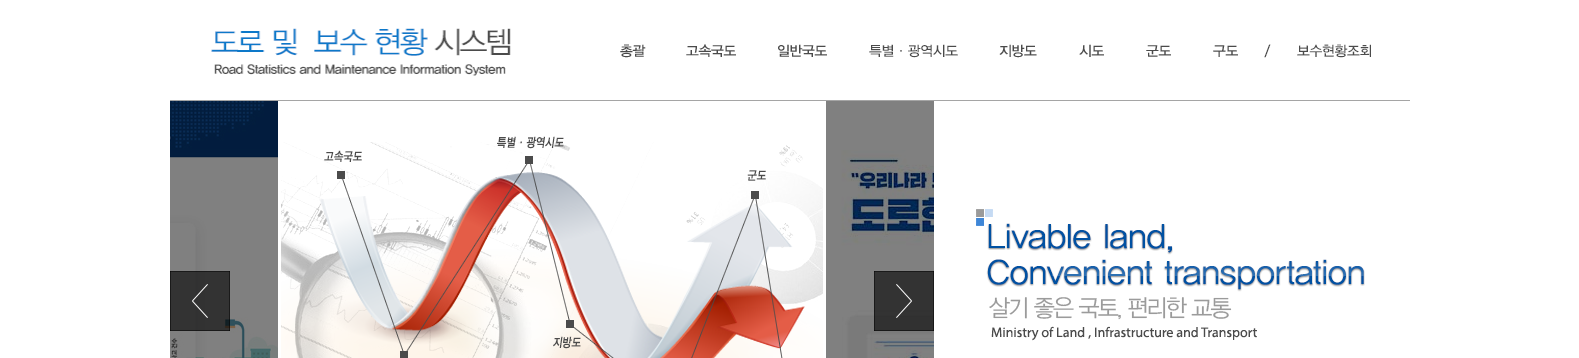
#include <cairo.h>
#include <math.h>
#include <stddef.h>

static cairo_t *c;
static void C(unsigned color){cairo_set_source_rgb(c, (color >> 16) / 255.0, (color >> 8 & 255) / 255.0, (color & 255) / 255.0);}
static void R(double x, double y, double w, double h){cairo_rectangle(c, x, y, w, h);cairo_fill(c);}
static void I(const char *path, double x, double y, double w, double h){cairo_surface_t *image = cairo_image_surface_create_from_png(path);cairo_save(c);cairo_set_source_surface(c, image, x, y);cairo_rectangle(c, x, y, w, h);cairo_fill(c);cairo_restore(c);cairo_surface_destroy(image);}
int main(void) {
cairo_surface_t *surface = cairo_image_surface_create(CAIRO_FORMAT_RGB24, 1579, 358);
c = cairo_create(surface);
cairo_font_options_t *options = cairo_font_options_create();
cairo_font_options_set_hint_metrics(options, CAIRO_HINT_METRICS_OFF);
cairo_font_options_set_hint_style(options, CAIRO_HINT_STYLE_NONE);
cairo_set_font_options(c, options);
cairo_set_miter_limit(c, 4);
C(0xffffff);
cairo_paint(c);
I("1.png",211,28,300,48);
I("2.png",620,44,26,14);
I("3.png",686,44,50,13);
I("4.png",778,44,49,13);
I("5.png",869,44,89,14);
I("6.png",999,44,38,14);
I("7.png",1079,44,25,13);
I("8.png",1146,45,25,12);
I("9.png",1213,45,25,12);
I("10.png",1264,44,7,14);
I("11.png",1297,44,74,14);
C(0xa5a5a5);
R(170,100,1240,1);
I("12.png",170,101,108,257);
I("13.png",281,136,542,222);
C(0x808080);
R(826,101,108,257);
I("14.png",841,150,93,208);
I("15.png",170,271,60,60);
I("16.png",874,271,60,60);
I("17.png",976,209,389,132);
cairo_surface_write_to_png(surface, "o.png");
cairo_font_options_destroy(options);
cairo_destroy(c);
cairo_surface_destroy(surface);
return 0;
}
